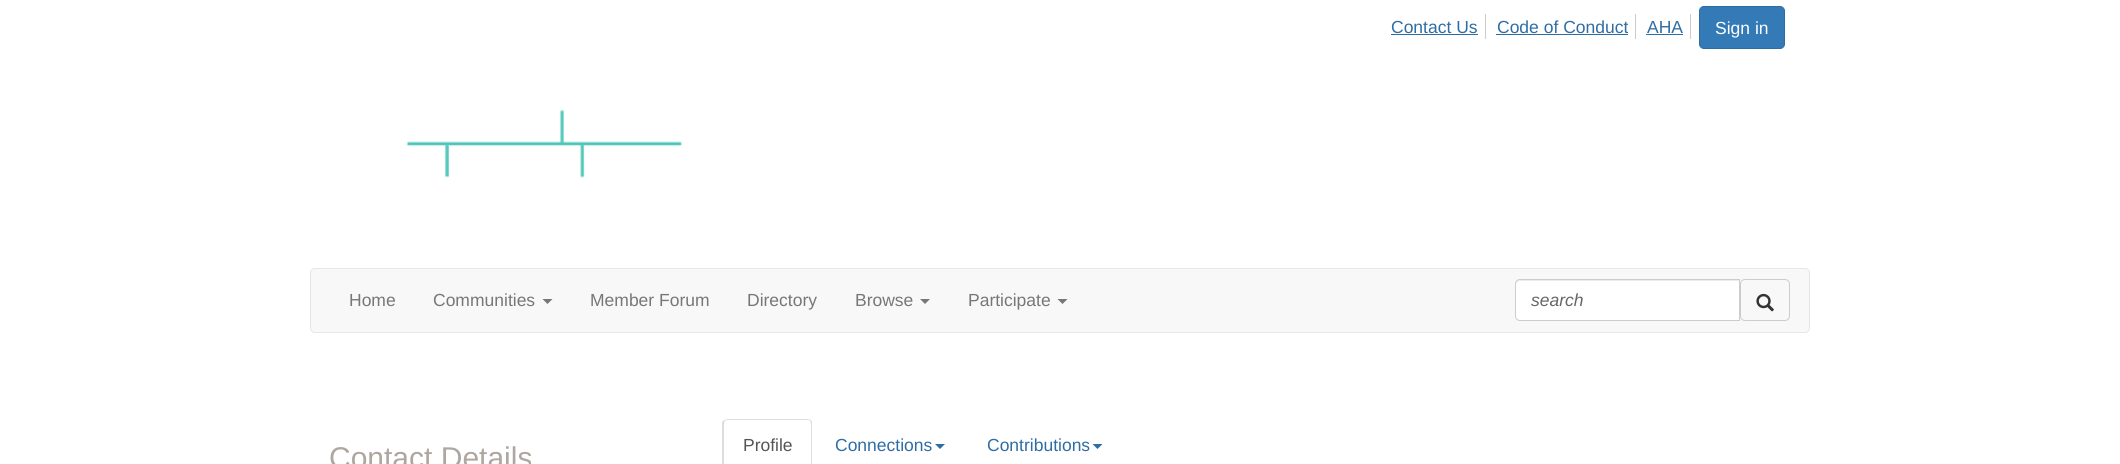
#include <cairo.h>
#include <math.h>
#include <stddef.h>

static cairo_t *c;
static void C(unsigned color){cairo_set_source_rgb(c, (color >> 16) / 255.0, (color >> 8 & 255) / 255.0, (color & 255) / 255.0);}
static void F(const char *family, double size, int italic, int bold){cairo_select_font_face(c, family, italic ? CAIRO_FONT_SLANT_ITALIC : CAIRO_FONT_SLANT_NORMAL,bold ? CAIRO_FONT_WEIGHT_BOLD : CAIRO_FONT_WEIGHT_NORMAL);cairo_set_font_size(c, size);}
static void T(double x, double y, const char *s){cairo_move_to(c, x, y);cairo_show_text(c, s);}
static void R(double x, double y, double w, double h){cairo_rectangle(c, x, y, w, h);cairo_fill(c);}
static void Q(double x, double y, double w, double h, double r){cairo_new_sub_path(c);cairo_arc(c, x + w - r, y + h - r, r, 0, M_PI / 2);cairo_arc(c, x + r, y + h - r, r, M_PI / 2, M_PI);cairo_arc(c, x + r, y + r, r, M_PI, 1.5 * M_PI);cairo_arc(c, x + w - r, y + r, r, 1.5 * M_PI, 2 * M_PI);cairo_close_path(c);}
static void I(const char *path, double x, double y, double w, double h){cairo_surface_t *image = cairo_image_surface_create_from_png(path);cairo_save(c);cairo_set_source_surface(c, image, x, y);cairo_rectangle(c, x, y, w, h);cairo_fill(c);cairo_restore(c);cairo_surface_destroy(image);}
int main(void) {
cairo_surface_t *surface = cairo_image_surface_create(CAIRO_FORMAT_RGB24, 2120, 464);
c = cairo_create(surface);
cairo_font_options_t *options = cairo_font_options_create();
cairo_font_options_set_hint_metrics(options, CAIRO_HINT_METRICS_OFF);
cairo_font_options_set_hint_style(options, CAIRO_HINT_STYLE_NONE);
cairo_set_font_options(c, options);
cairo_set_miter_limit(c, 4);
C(0xffffff);
cairo_paint(c);
C(0xcccccc);
R(1485,14,1,25);
F("Liberation Sans",17.5,0,0);
C(0x2e6da4);
T(1391,33,"Contact Us");
R(1391,34,87,1);
C(0xcccccc);
R(1635,14,1,25);
C(0x2e6da4);
T(1497,33,"Code of Conduct");
R(1496,34,132,1);
C(0xcccccc);
R(1690,14,1,25);
C(0x2e6da4);
T(1647,33,"AHA");
R(1646,34,37,1);
C(0x337ab7);
Q(1699.5,6.5,85,42,4.5);
cairo_fill_preserve(c);
C(0x2e6da4);
cairo_set_line_width(c,1);
cairo_stroke(c);
C(0xffffff);
T(1715,34,"Sign in");
I("1.png",406,109,276,69);
C(0xf8f8f8);
Q(310.5,268.5,1499,64,4.5);
cairo_fill_preserve(c);
C(0xe7e7e7);
cairo_stroke(c);
C(0x777777);
T(349,306,"Home");
T(433,306,"Communities");
cairo_new_path(c);
cairo_move_to(c,542.5,299);
cairo_line_to(c,552.5,299);
cairo_line_to(c,547.5,304);
cairo_close_path(c);
cairo_fill(c);
T(590,306,"Member Forum");
T(747,306,"Directory");
T(855,306,"Browse");
cairo_new_path(c);
cairo_move_to(c,920,299);
cairo_line_to(c,930,299);
cairo_line_to(c,925,304);
cairo_close_path(c);
cairo_fill(c);
T(968,306,"Participate");
cairo_new_path(c);
cairo_move_to(c,1057.5,299);
cairo_line_to(c,1067.5,299);
cairo_line_to(c,1062.5,304);
cairo_close_path(c);
cairo_fill(c);
C(0xffffff);
cairo_new_path(c);
cairo_move_to(c,1520,279);
cairo_line_to(c,1740,279);
cairo_line_to(c,1740,321);
cairo_line_to(c,1520,321);
cairo_curve_to(c,1517,321,1515,319,1515,316);
cairo_line_to(c,1515,284);
cairo_curve_to(c,1515,281,1517,279,1520,279);
cairo_close_path(c);
cairo_fill(c);
C(0xececec);
cairo_new_path(c);
cairo_move_to(c,1520,281);
cairo_line_to(c,1739,281);
cairo_line_to(c,1739,280);
cairo_line_to(c,1520,280);
cairo_curve_to(c,1517,280,1516,282,1516,285);
cairo_curve_to(c,1516,283,1518,281,1520,281);
cairo_close_path(c);
cairo_fill(c);
cairo_new_path(c);
cairo_move_to(c,1520,279.5);
cairo_line_to(c,1739.5,279.5);
cairo_line_to(c,1739.5,320.5);
cairo_line_to(c,1520,320.5);
cairo_curve_to(c,1517.5,320.5,1515.5,318.5,1515.5,316);
cairo_line_to(c,1515.5,284);
cairo_curve_to(c,1515.5,281.5,1517.5,279.5,1520,279.5);
cairo_close_path(c);
C(0xcccccc);
cairo_stroke(c);
F("Liberation Sans",17.5,1,0);
C(0x666666);
T(1531,306,"search");
Q(1740.5,279.5,49,41,4.5);
C(0xcccccc);
cairo_stroke(c);
I("2.png",1756,293,18,19);
F("Liberation Sans",30,0,0);
C(0xaea79f);
T(329,468,"Contact Details");
C(0xdddddd);
cairo_new_path(c);
cairo_move_to(c,728,419);
cairo_line_to(c,724,420);
cairo_line_to(c,725,421);
cairo_curve_to(c,726,420,727,420,728,420);
cairo_line_to(c,808,420);
cairo_curve_to(c,809,420,810,420,810,421);
cairo_line_to(c,811,420);
cairo_curve_to(c,810,420,809,419,808,419);
cairo_close_path(c);
cairo_fill(c);
cairo_new_path(c);
cairo_move_to(c,812,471);
cairo_line_to(c,812,424);
cairo_curve_to(c,812,423,812,421,811,420);
cairo_line_to(c,810,421);
cairo_line_to(c,811,424);
cairo_line_to(c,811,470);
cairo_close_path(c);
cairo_fill(c);
cairo_new_path(c);
cairo_move_to(c,722,422);
cairo_line_to(c,724,420);
cairo_line_to(c,725,421);
cairo_curve_to(c,724,422,724,423,724,424);
cairo_line_to(c,724,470);
cairo_line_to(c,722,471);
cairo_close_path(c);
cairo_fill(c);
F("Liberation Sans",17.5,0,0);
C(0x555555);
T(743,451,"Profile");
C(0x2e6da4);
T(835,451,"Connections");
cairo_new_path(c);
cairo_move_to(c,935,444);
cairo_line_to(c,945,444);
cairo_line_to(c,940,449);
cairo_close_path(c);
cairo_fill(c);
T(987,451,"Contributions");
cairo_new_path(c);
cairo_move_to(c,1092.5,444);
cairo_line_to(c,1102.5,444);
cairo_line_to(c,1097.5,449);
cairo_close_path(c);
cairo_fill(c);
cairo_surface_write_to_png(surface, "o.png");
cairo_font_options_destroy(options);
cairo_destroy(c);
cairo_surface_destroy(surface);
return 0;
}
